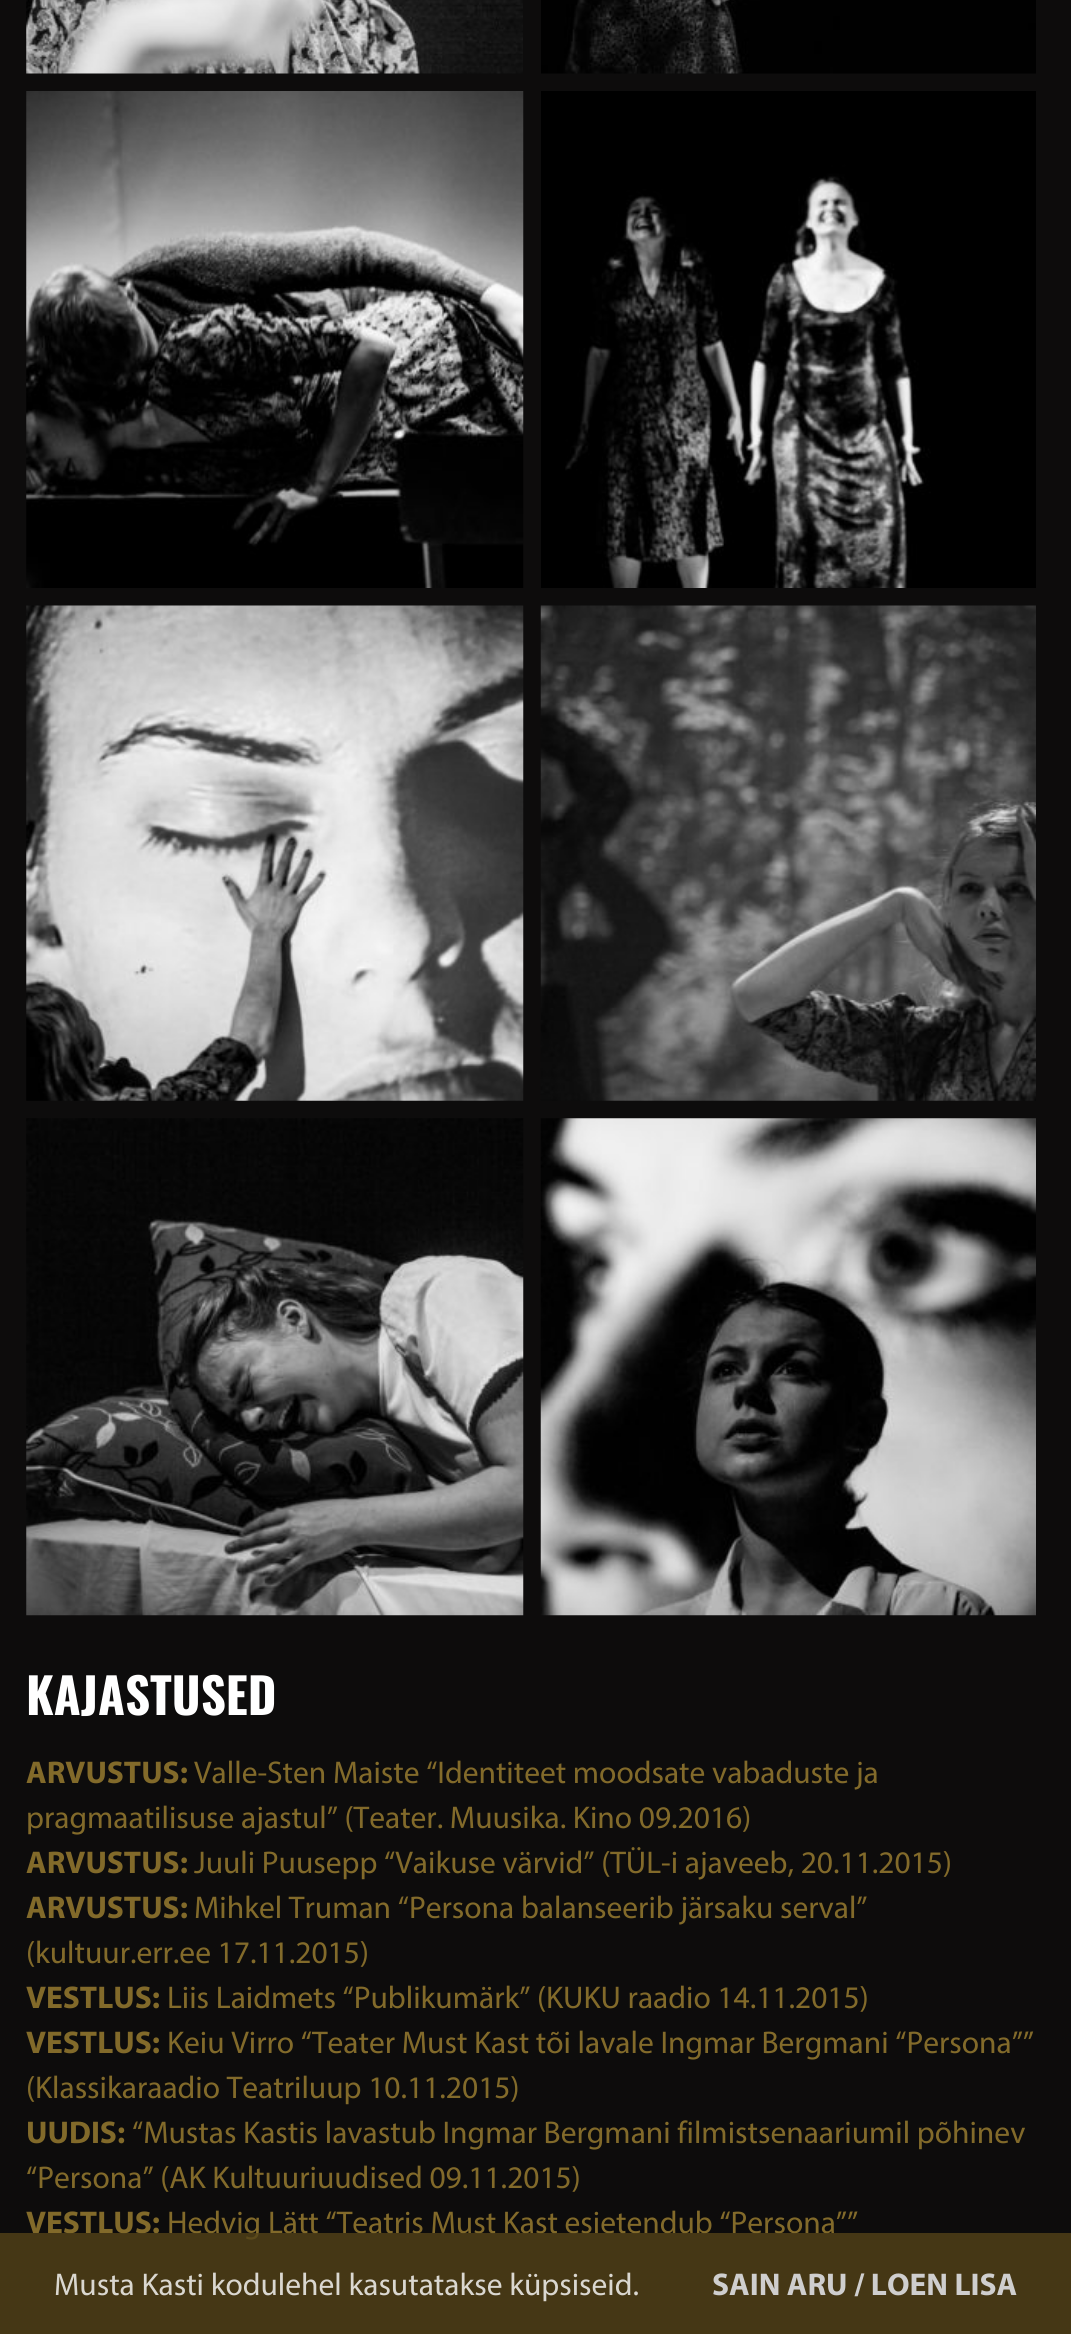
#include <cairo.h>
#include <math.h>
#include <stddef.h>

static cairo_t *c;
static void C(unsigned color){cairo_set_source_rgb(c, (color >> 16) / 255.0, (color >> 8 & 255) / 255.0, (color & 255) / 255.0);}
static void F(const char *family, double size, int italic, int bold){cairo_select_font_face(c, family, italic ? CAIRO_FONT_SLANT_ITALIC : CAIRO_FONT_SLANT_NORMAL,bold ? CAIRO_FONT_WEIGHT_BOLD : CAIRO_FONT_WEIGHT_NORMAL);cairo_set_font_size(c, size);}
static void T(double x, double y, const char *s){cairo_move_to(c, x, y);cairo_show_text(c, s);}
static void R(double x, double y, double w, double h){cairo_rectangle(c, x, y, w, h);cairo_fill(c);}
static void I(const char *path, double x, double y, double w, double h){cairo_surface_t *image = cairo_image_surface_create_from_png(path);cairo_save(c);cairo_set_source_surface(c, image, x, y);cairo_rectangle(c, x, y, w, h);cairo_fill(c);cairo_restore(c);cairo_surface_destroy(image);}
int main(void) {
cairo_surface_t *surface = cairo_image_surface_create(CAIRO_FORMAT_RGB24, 1071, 2334);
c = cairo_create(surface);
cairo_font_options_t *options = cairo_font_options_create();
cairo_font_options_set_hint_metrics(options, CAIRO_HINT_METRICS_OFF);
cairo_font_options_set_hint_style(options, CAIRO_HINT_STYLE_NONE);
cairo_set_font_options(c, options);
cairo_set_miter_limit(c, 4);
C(0x0d0c0c);
cairo_paint(c);
I("1.png",26,0,497,74);
I("2.png",541,0,495,74);
I("3.png",26,91,498,497);
I("4.png",541,91,495,497);
I("5.png",26,605,498,496);
I("6.png",540,605,496,496);
I("7.png",26,1118,498,498);
I("8.png",540,1118,496,498);
F("Oswald",49,0,1);
C(0xffffff);
T(26,1715,"KAJASTUSED");
F("Myriad",31.5,0,1);
C(0x826a2a);
T(26,1783,"ARVUSTUS:");
F("Myriad",31.5,0,0);
T(194,1783,"Valle-Sten Maiste “Identiteet moodsate vabaduste ja");
T(26,1828,"pragmaatilisuse ajastul” (Teater. Muusika. Kino 09.2016)");
F("Myriad",31.5,0,1);
T(26,1873,"ARVUSTUS:");
F("Myriad",31.5,0,0);
T(194,1873,"Juuli Puusepp “Vaikuse värvid” (TÜL-i ajaveeb, 20.11.2015)");
F("Myriad",31.5,0,1);
T(26,1918,"ARVUSTUS:");
F("Myriad",31.5,0,0);
T(194,1918,"Mihkel Truman “Persona balanseerib järsaku serval”");
T(26,1963,"(kultuur.err.ee 17.11.2015)");
F("Myriad",31.5,0,1);
T(26,2008,"VESTLUS:");
F("Myriad",31.5,0,0);
T(167,2008,"Liis Laidmets “Publikumärk” (KUKU raadio 14.11.2015)");
F("Myriad",31.5,0,1);
T(26,2053,"VESTLUS:");
F("Myriad",31.5,0,0);
T(167,2053,"Keiu Virro “Teater Must Kast tõi lavale Ingmar Bergmani “Persona””");
T(26,2098,"(Klassikaraadio Teatriluup 10.11.2015)");
F("Myriad",31.5,0,1);
T(26,2143,"UUDIS:");
F("Myriad",31.5,0,0);
T(132,2143,"“Mustas Kastis lavastub Ingmar Bergmani filmistsenaariumil põhinev");
T(26,2188,"“Persona” (AK Kultuuriuudised 09.11.2015)");
F("Myriad",31.5,0,1);
T(26,2233,"VESTLUS:");
F("Myriad",31.5,0,0);
T(167,2233,"Hedvig Lätt “Teatris Must Kast esietendub “Persona””");
cairo_set_source_rgba(c,0.325,0.263,0.094,0.8);
R(0,2233,1071,101);
C(0xdad7d0);
T(54,2295,"Musta Kasti kodulehel kasutatakse küpsiseid.");
F("Myriad",31.5,0,1);
C(0xcfcece);
T(712,2295,"SAIN ARU");
T(854,2295,"/ LOEN LISA");
cairo_surface_write_to_png(surface, "o.png");
cairo_font_options_destroy(options);
cairo_destroy(c);
cairo_surface_destroy(surface);
return 0;
}
